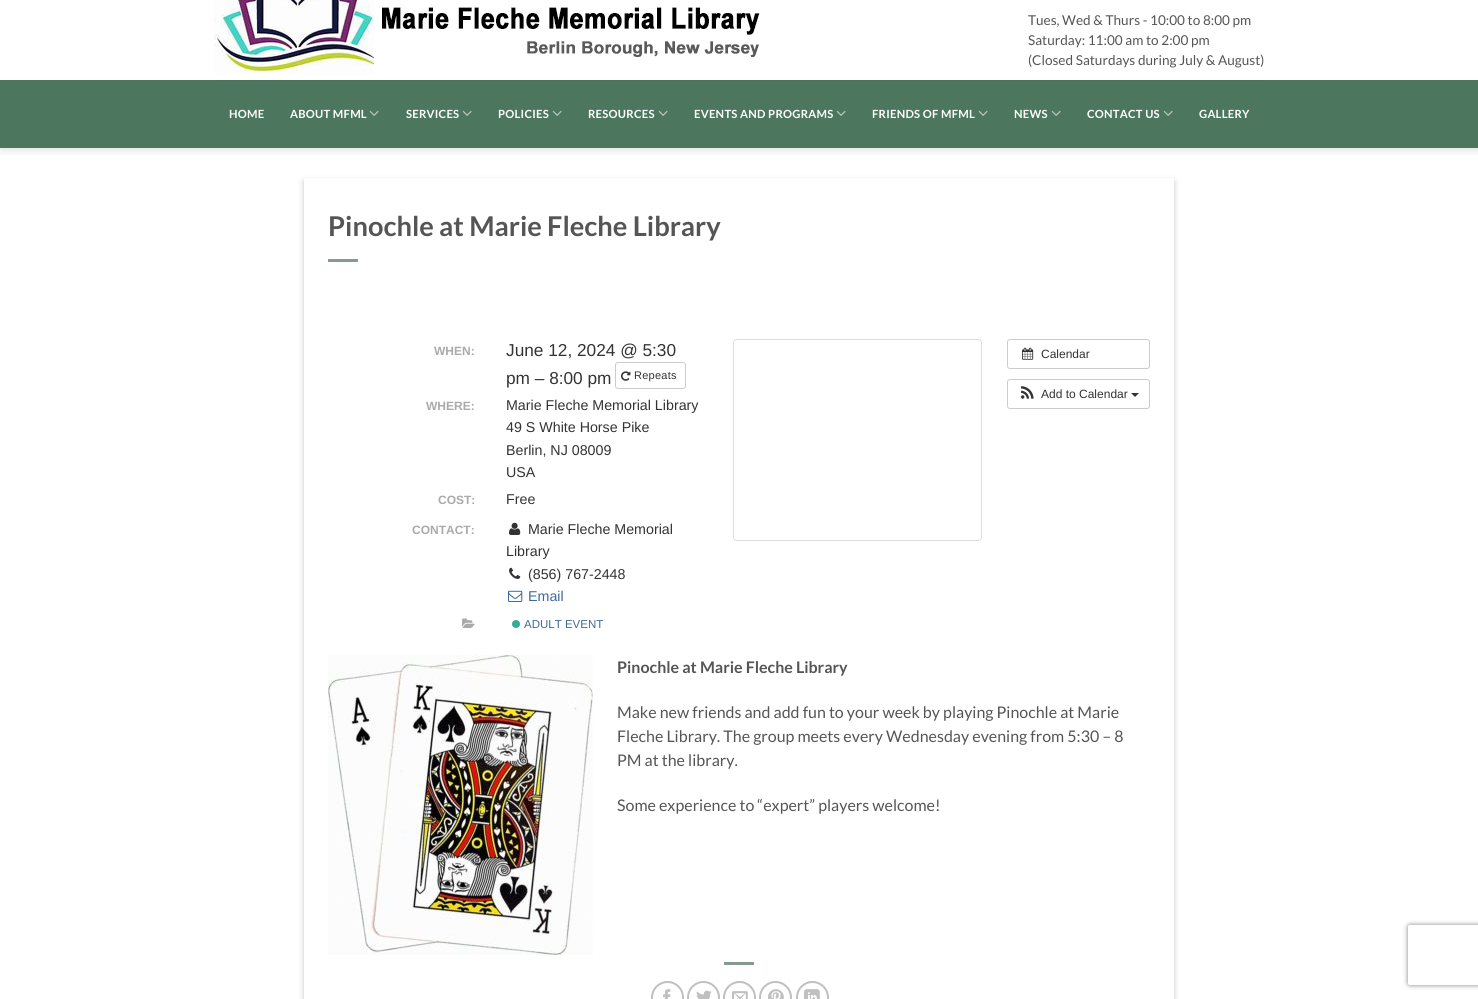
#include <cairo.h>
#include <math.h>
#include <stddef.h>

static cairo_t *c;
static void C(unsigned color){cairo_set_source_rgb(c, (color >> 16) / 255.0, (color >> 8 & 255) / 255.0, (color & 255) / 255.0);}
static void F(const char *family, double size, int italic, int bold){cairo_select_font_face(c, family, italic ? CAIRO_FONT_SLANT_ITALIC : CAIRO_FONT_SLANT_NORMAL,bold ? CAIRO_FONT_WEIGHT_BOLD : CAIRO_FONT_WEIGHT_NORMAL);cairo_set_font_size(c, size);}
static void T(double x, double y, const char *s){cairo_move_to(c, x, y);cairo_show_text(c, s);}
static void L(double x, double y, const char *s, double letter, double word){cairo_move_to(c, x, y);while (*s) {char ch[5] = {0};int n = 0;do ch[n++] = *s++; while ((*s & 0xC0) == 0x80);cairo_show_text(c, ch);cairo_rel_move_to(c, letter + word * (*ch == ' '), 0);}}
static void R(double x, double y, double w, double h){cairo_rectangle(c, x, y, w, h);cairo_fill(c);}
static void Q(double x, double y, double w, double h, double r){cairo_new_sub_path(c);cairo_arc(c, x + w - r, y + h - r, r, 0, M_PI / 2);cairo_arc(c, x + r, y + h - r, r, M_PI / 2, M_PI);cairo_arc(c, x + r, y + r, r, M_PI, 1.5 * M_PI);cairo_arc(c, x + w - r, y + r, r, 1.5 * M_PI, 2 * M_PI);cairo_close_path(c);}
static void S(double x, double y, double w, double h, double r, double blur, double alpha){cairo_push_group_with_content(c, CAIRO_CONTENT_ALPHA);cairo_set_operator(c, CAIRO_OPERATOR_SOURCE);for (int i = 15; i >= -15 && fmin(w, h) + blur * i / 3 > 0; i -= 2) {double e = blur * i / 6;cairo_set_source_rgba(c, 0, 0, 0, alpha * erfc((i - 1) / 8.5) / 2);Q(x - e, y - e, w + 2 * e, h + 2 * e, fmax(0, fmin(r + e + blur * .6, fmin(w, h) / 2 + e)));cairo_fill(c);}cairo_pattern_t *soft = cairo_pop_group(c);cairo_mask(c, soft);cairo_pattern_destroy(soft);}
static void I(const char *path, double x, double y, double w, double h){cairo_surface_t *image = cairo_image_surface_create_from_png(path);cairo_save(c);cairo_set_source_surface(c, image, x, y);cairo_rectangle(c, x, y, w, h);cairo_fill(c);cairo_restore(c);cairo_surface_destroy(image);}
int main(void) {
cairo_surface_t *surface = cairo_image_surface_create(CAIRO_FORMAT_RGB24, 1478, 999);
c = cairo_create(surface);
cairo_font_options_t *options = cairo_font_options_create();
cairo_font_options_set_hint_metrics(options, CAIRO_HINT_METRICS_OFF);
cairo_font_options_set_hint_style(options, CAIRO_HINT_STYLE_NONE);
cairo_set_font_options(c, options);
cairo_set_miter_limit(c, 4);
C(0xffffff);
cairo_paint(c);
cairo_save(c);
cairo_rectangle(c,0,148,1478,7);
cairo_clip(c);
C(0x000000);
S(1,-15,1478,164,0,5,.15);
cairo_restore(c);
I("1.png",214,0,546,74);
F("Lato",13.6,0,0);
C(0x555555);
T(1028,25,"Tues, Wed & Thurs - 10:00 to 8:00 pm");
T(1028,45,"Saturday: 11:00 am to 2:00 pm");
T(1028,65,"(Closed Saturdays during July & August)");
C(0x4c765d);
R(0,80,1478,68);
C(0x4d735c);
R(214,80,1050,1);
F("Lato",11.25,0,1);
C(0xffffff);
L(229,118,"HOME",.25,0);
L(290,118,"ABOUT MFML",.25,0);
I("2.png",369,110,10,6);
L(406,118,"SERVICES",.25,0);
I("2.png",462,110,10,6);
L(498,118,"POLICIES",.25,0);
I("2.png",552,110,10,6);
L(588,118,"RESOURCES",.25,0);
I("2.png",658,110,10,6);
L(694,118,"EVENTS AND PROGRAMS",.25,0);
I("2.png",836,110,10,6);
L(872,118,"FRIENDS OF MFML",.25,0);
I("2.png",978,110,10,6);
L(1014,118,"NEWS",.25,0);
I("2.png",1051,110,10,6);
L(1087,118,"CONTACT US",.25,0);
I("2.png",1163,110,10,6);
L(1199,118,"GALLERY",.25,0);
cairo_save(c);
cairo_set_fill_rule(c,CAIRO_FILL_RULE_EVEN_ODD);
cairo_new_path(c);
cairo_move_to(c,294,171);
cairo_line_to(c,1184,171);
cairo_line_to(c,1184,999);
cairo_line_to(c,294,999);
cairo_close_path(c);
cairo_move_to(c,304,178);
cairo_line_to(c,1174,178);
cairo_line_to(c,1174,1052);
cairo_line_to(c,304,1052);
cairo_close_path(c);
cairo_clip(c);
C(0x000000);
S(304,181,870,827,0,3,.23);
cairo_restore(c);
F("Lato",27.25,0,1);
C(0x555555);
T(328,236,"Pinochle at Marie Fleche Library");
C(0x879a8f);
R(328,259,30,3);
F("Liberation Sans",12,0,1);
C(0xaaaaaa);
T(434,355,"WHEN:");
F("Liberation Sans",17.25,0,0);
C(0x333333);
T(506,356,"June 12, 2024 @ 5:30");
T(506,384,"pm – 8:00 pm");
Q(615.5,362.5,70,26,2.5);
C(0xcccccc);
cairo_set_line_width(c,1);
cairo_stroke(c);
I("3.png",621,371,10,10);
F("Liberation Sans",11,0,0);
C(0x333333);
L(634,379,"Repeats",.25,0);
F("Liberation Sans",12,0,1);
C(0xaaaaaa);
T(426,410,"WHERE:");
F("Liberation Sans",14.25,0,0);
C(0x333333);
T(506,410,"Marie Fleche Memorial Library");
T(506,432,"49 S White Horse Pike");
T(506,455,"Berlin, NJ 08009");
T(506,477,"USA");
F("Liberation Sans",12,0,1);
C(0xaaaaaa);
T(438,504,"COST:");
F("Liberation Sans",14.25,0,0);
C(0x333333);
T(506,504,"Free");
F("Liberation Sans",12,0,1);
C(0xaaaaaa);
T(412,534,"CONTACT:");
I("4.png",509,522,12,13);
F("Liberation Sans",14.25,0,0);
C(0x333333);
T(528,534,"Marie Fleche Memorial");
T(506,556,"Library");
I("5.png",509,567,12,12);
T(528,579,"(856) 767-2448");
I("6.png",508,590,15,12);
C(0x3d6b99);
T(528,601,"Email");
I("7.png",462,618,13,10);
C(0x34ac9a);
cairo_arc(c,516,624,4,0,2 * M_PI);
cairo_fill(c);
F("Liberation Sans",11.5,0,0);
C(0x3d6b99);
T(524,628,"ADULT EVENT");
Q(733.5,339.5,248,201,3.5);
C(0xdddddd);
cairo_stroke(c);
Q(1007.5,339.5,142,29,2.5);
C(0xcccccc);
cairo_stroke(c);
I("8.png",1022,347,12,13);
F("Liberation Sans",12,0,0);
C(0x333333);
T(1041,358,"Calendar");
Q(1007.5,379.5,142,29,2.5);
C(0xcccccc);
cairo_stroke(c);
I("9.png",1021,386,13,13);
C(0x333333);
T(1041,398,"Add to Calendar");
cairo_new_path(c);
cairo_move_to(c,1131,393);
cairo_line_to(c,1139,393);
cairo_line_to(c,1135,397);
cairo_close_path(c);
cairo_fill(c);
I("10.png",328,655,265,300);
F("Lato",16,0,1);
C(0x555555);
T(617,673,"Pinochle at Marie Fleche Library");
F("Lato",16,0,0);
T(617,718,"Make new friends and add fun to your week by playing Pinochle at Marie");
T(617,742,"Fleche Library. The group meets every Wednesday evening from 5:30 – 8");
T(617,766,"PM at the library.");
T(617,811,"Some experience to “expert” players welcome!");
C(0x879a8f);
R(724,962,30,3);
cairo_new_path(c);
cairo_arc(c,667.5,997.5,15.5,0,2 * M_PI);
C(0xc0c0c0);
cairo_set_line_width(c,2);
cairo_stroke(c);
I("11.png",663,989,8,10);
cairo_arc(c,703.5,997.5,15.5,0,2 * M_PI);
cairo_stroke(c);
I("12.png",696,990,16,9);
cairo_arc(c,739.5,997.5,15.5,0,2 * M_PI);
cairo_stroke(c);
I("13.png",732,991,16,8);
cairo_arc(c,775.5,997.5,15.5,0,2 * M_PI);
cairo_stroke(c);
I("14.png",768,989,16,10);
cairo_arc(c,812.5,997.5,15.5,0,2 * M_PI);
cairo_stroke(c);
I("15.png",804,989,16,10);
cairo_save(c);
cairo_set_fill_rule(c,CAIRO_FILL_RULE_EVEN_ODD);
cairo_new_path(c);
cairo_move_to(c,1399,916);
cairo_line_to(c,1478,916);
cairo_line_to(c,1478,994);
cairo_line_to(c,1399,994);
cairo_close_path(c);
cairo_move_to(c,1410,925);
cairo_line_to(c,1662,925);
cairo_curve_to(c,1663,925,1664,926,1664,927);
cairo_line_to(c,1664,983);
cairo_curve_to(c,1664,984,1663,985,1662,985);
cairo_line_to(c,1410,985);
cairo_curve_to(c,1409,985,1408,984,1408,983);
cairo_line_to(c,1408,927);
cairo_curve_to(c,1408,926,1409,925,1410,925);
cairo_close_path(c);
cairo_clip(c);
C(0x808080);
S(1408,925,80,60,2,2.5,1);
cairo_restore(c);
cairo_surface_write_to_png(surface, "o.png");
cairo_font_options_destroy(options);
cairo_destroy(c);
cairo_surface_destroy(surface);
return 0;
}
